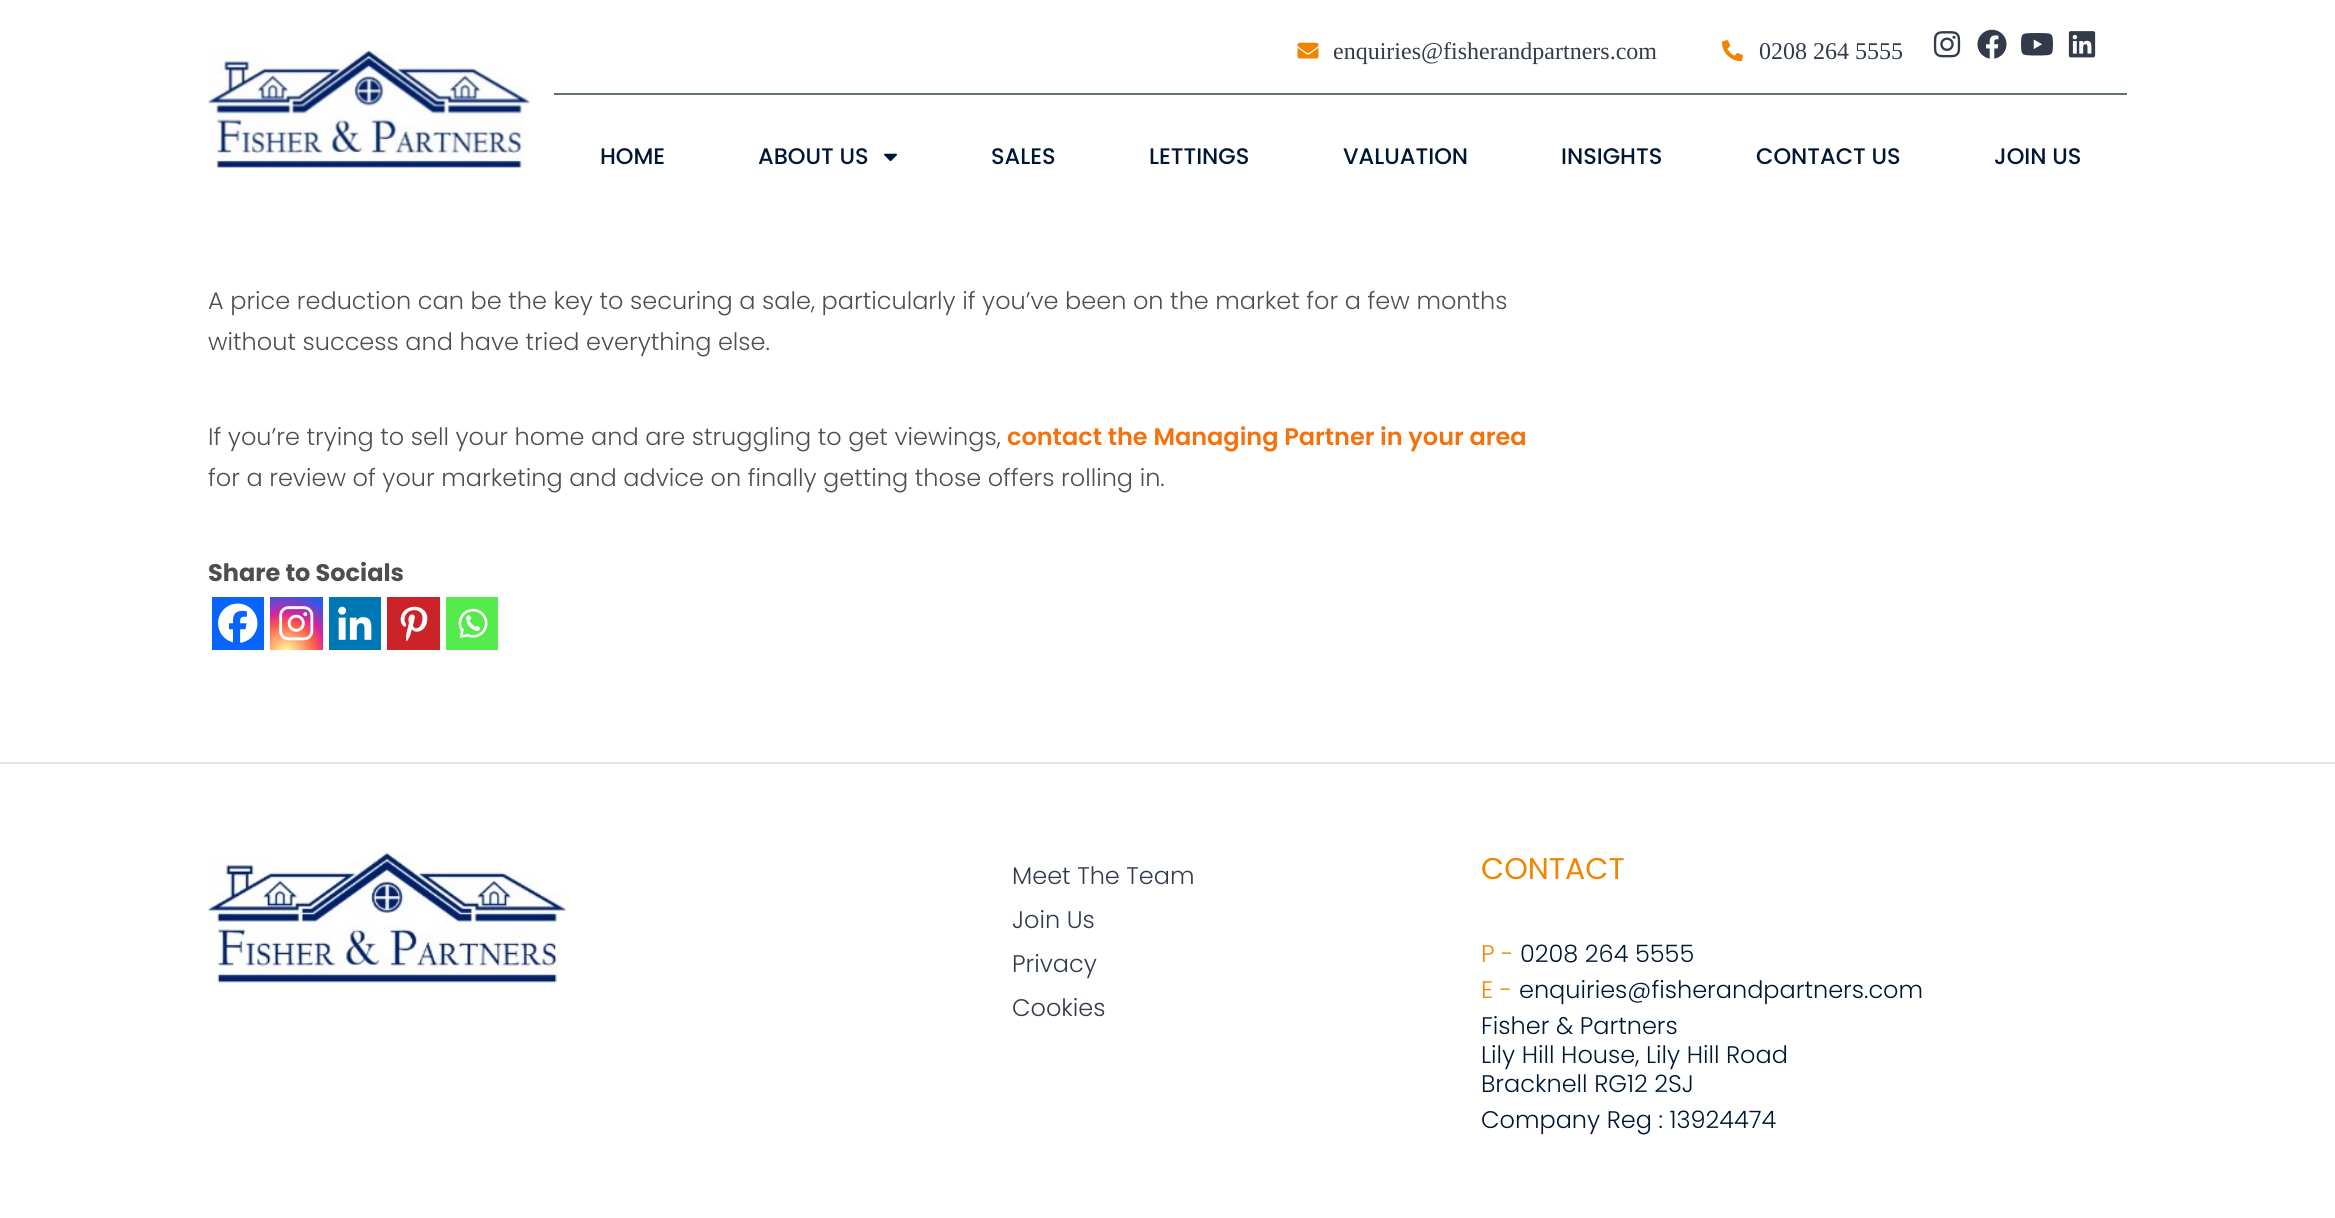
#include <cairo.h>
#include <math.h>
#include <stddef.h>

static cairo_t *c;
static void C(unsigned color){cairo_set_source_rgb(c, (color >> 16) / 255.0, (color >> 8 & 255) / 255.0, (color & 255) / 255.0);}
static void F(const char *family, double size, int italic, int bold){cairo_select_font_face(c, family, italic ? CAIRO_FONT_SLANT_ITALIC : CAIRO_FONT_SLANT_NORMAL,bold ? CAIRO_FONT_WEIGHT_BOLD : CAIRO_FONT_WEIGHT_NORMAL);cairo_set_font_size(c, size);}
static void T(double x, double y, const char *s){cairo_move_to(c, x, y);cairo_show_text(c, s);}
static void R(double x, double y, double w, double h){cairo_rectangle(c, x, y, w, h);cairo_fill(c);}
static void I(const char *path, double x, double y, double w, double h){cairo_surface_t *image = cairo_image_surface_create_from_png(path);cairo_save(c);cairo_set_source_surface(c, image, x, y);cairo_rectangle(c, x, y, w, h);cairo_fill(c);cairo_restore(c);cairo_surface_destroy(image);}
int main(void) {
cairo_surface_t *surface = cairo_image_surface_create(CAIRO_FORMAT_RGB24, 2335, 1218);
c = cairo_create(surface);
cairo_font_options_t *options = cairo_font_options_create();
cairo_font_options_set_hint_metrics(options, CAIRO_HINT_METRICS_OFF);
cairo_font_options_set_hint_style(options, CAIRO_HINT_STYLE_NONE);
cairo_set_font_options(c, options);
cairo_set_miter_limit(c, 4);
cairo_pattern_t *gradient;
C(0xffffff);
cairo_paint(c);
I("1.png",208,51,326,117);
C(0x626f77);
R(554,93,1573,2);
I("2.png",1297,42,22,17);
F("Liberation Serif",24,0,0);
C(0x333b4a);
T(1333,59,"enquiries@fisherandpartners.com");
I("3.png",1722,40,21,22);
T(1759,59,"0208 264 5555");
I("4.png",1933,31,28,27);
I("5.png",1977,29,30,30);
I("6.png",2021,33,32,23);
I("7.png",2068,31,28,27);
F("Poppins Medium",22.5,0,0);
C(0x001733);
T(600,164,"HOME");
T(758,164,"ABOUT US");
I("8.png",884,153,13,9);
T(991,164,"SALES");
T(1149,164,"LETTINGS");
T(1343,164,"VALUATION");
T(1561,164,"INSIGHTS");
T(1756,164,"CONTACT US");
T(1994,164,"JOIN US");
F("Poppins Light",24,0,0);
C(0x4d4e4f);
T(208,309,"A price reduction can be the key to securing a sale, particularly if you’ve been on the market for a few months");
T(208,350,"without success and have tried everything else.");
T(208,445,"If you’re trying to sell your home and are struggling to get viewings,");
F("Poppins SemiBold",24,0,0);
C(0xf6700c);
T(1007,445,"contact the Managing Partner in your area");
F("Poppins Light",24,0,0);
C(0x4d4e4f);
T(208,486,"for a review of your marketing and advice on finally getting those offers rolling in.");
F("Poppins",24,0,1);
T(208,581,"Share to Socials");
C(0x0765fe);
R(212,597,52,53);
I("9.png",218,603,40,40);
gradient = cairo_pattern_create_radial(286,653,0,286,653,67);
cairo_pattern_add_color_stop_rgba(gradient,0,0.992,0.957,0.592,1);
cairo_pattern_add_color_stop_rgba(gradient,.05,0.992,0.957,0.592,1);
cairo_pattern_add_color_stop_rgba(gradient,.45,0.992,0.349,0.286,1);
cairo_pattern_add_color_stop_rgba(gradient,.6,0.839,0.141,0.624,1);
cairo_pattern_add_color_stop_rgba(gradient,.9,0.157,0.353,0.922,1);
cairo_set_source(c,gradient);
cairo_pattern_destroy(gradient);
R(270,597,53,53);
I("10.png",279,606,35,35);
C(0x0077b5);
R(329,597,52,53);
I("11.png",338,606,34,34);
C(0xcc2329);
R(387,597,53,53);
I("12.png",400,606,28,36);
C(0x55eb4c);
R(446,597,52,53);
I("13.png",458,608,30,30);
C(0xe5e5e5);
R(0,762,2335,2);
I("14.png",208,853,363,130);
F("Poppins Light",24,0,0);
C(0x333b4a);
T(1012,884,"Meet The Team");
T(1012,928,"Join Us");
T(1012,972,"Privacy");
T(1012,1016,"Cookies");
F("Poppins",30,0,0);
C(0xf28500);
T(1481,879,"CONTACT");
F("Poppins Light",24,0,0);
T(1481,962,"P -");
C(0x001733);
T(1520,962,"0208 264 5555");
C(0xf28500);
T(1481,998,"E -");
C(0x001733);
T(1519,998,"enquiries@fisherandpartners.com");
T(1481,1034,"Fisher & Partners");
T(1481,1063,"Lily Hill House, Lily Hill Road");
T(1481,1092,"Bracknell RG12 2SJ");
T(1481,1128,"Company Reg : 13924474");
cairo_surface_write_to_png(surface, "o.png");
cairo_font_options_destroy(options);
cairo_destroy(c);
cairo_surface_destroy(surface);
return 0;
}
